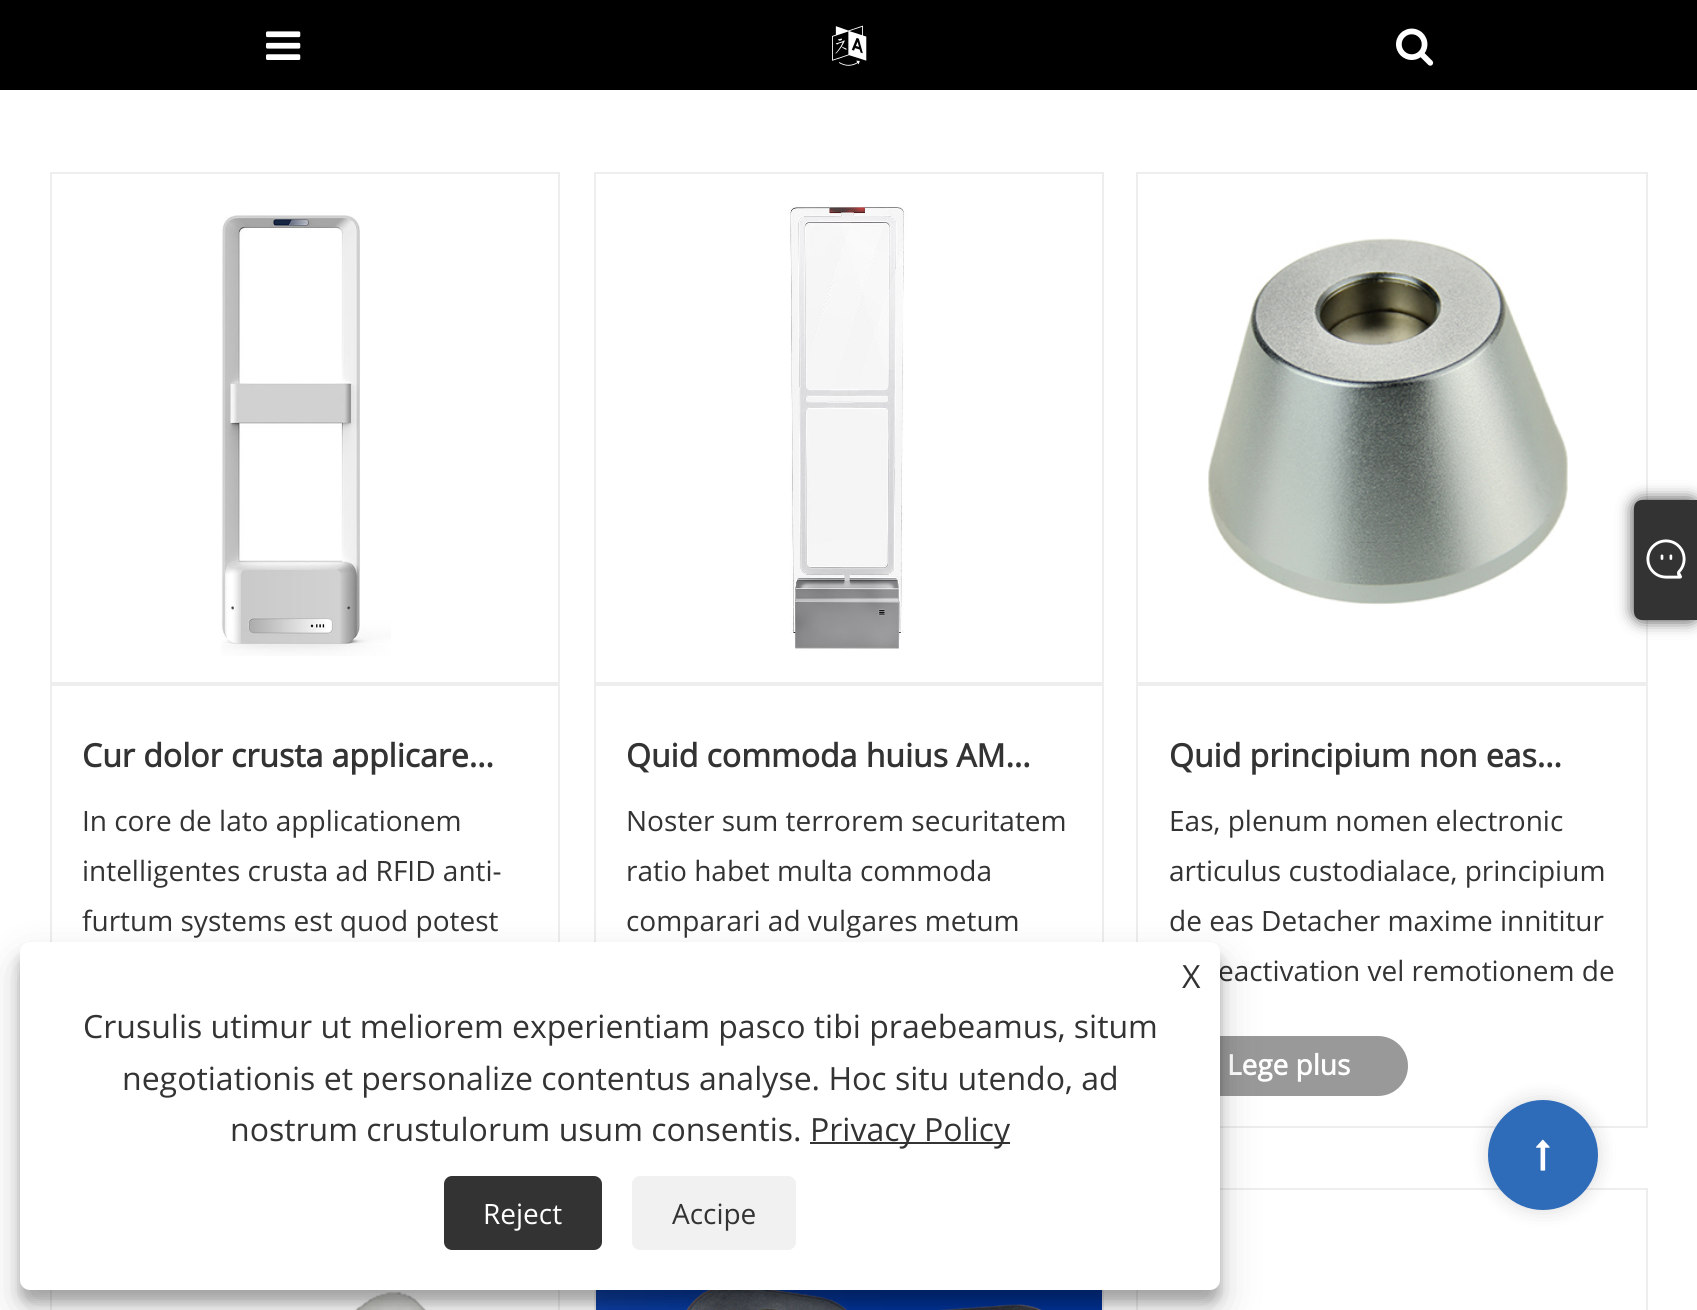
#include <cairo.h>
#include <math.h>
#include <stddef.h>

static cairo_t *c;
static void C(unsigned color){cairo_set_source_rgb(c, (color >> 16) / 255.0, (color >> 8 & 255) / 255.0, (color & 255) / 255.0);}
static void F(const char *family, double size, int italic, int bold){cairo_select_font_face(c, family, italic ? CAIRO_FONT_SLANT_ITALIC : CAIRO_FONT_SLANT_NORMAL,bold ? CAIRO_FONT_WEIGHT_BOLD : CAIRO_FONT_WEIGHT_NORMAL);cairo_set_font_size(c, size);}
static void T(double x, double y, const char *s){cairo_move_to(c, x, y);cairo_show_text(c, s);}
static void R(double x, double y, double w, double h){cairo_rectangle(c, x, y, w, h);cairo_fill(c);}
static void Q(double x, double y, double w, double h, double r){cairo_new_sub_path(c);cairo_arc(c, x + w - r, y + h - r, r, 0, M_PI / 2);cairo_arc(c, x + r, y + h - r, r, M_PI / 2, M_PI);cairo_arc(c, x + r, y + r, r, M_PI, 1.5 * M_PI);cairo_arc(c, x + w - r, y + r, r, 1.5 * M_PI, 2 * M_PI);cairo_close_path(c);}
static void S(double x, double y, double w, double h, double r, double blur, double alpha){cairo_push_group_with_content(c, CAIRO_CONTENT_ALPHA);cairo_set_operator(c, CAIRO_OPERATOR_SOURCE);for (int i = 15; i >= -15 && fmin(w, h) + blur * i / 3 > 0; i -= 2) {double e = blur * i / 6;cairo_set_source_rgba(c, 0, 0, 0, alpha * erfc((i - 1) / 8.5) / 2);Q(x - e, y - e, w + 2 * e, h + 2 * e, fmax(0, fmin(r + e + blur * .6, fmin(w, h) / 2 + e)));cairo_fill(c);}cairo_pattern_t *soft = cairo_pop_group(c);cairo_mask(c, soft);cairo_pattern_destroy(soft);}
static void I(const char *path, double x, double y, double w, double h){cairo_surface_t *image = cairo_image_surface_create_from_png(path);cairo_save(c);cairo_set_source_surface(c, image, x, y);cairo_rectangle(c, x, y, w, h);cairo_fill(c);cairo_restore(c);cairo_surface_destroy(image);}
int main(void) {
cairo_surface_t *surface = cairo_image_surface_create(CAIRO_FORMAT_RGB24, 1697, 1310);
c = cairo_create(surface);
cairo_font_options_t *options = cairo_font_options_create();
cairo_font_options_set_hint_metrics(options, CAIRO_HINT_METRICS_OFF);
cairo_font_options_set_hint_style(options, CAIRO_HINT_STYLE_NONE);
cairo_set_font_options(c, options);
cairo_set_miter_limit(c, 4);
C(0xffffff);
cairo_paint(c);
C(0x000000);
R(0,0,1697,90);
I("1.png",266,31,35,29);
I("2.png",832,25,35,41);
I("3.png",1396,28,38,38);
cairo_rectangle(c,1137,173,510,954);
C(0xeeeeee);
cairo_stroke(c);
C(0x333333);
S(1634,500,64,120,8,8,1);
C(0x333333);
cairo_new_path(c);
cairo_move_to(c,1642,500);
cairo_line_to(c,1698,500);
cairo_line_to(c,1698,620);
cairo_line_to(c,1642,620);
cairo_curve_to(c,1637.5,620,1634,616.5,1634,612);
cairo_line_to(c,1634,508);
cairo_curve_to(c,1634,503.5,1637.5,500,1642,500);
cairo_close_path(c);
cairo_fill(c);
I("4.png",1646,539,40,40);
cairo_rectangle(c,51,173,508,954);
C(0xeeeeee);
cairo_stroke(c);
R(52,682,506,4);
I("5.png",221,215,170,441);
F("Open Sans",32,0,1);
C(0x333333);
T(82,767,"Cur dolor crusta applicare…");
F("Open Sans",28,0,0);
T(82,831,"In core de lato applicationem");
T(82,881,"intelligentes crusta ad RFID anti-");
T(82,931,"furtum systems est quod potest");
cairo_rectangle(c,595,173,508,954);
C(0xeeeeee);
cairo_stroke(c);
R(596,682,506,4);
I("6.png",790,206,117,443);
F("Open Sans",32,0,1);
C(0x333333);
T(626,767,"Quid commoda huius AM…");
F("Open Sans",28,0,0);
T(626,831,"Noster sum terrorem securitatem");
T(626,881,"ratio habet multa commoda");
T(626,931,"comparari ad vulgares metum");
C(0xeeeeee);
R(1138,682,508,4);
I("7.png",1208,238,360,367);
F("Open Sans",32,0,1);
C(0x333333);
T(1169,767,"Quid principium non eas…");
F("Open Sans",28,0,0);
T(1169,831,"Eas, plenum nomen electronic");
T(1169,881,"articulus custodialace, principium");
T(1169,931,"de eas Detacher maxime innititur");
T(1218,981,"eactivation vel remotionem de");
C(0x999999);
Q(1168,1036,240,60,30);
cairo_fill(c);
F("Open Sans",28,0,1);
C(0xffffff);
T(1227,1075,"Lege plus");
cairo_rectangle(c,51,1189,508,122);
C(0xeeeeee);
cairo_stroke(c);
I("8.png",355,1291,71,19);
cairo_rectangle(c,595,1189,508,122);
cairo_stroke(c);
I("9.png",596,1290,506,20);
cairo_rectangle(c,1137,1189,510,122);
cairo_stroke(c);
C(0x000000);
S(20,954,1200,348,10,6,.23);
S(20,962,1200,348,10,20,.19);
C(0xffffff);
Q(20,942,1200,348,10);
cairo_fill(c);
F("Open Sans",32,0,0);
C(0x333333);
T(1182,988,"X");
T(83,1038,"Crusulis utimur ut meliorem experientiam pasco tibi praebeamus, situm");
T(122,1090,"negotiationis et personalize contentus analyse. Hoc situ utendo, ad");
T(230,1141,"nostrum crustulorum usum consentis.");
R(810,1142,200,2);
T(810,1141,"Privacy Policy");
Q(444,1176,158,74,8);
cairo_fill(c);
F("Open Sans",28,0,0);
C(0xffffff);
T(483,1224,"Reject");
C(0xf1f1f1);
Q(632,1176,164,74,8);
cairo_fill(c);
C(0x333333);
T(672,1224,"Accipe");
C(0x000000);
S(1488,1100,110,110,55,10,.15);
C(0x2e6bb8);
cairo_arc(c,1543,1155,55,0,2 * M_PI);
cairo_fill(c);
I("10.png",1536,1139,14,32);
cairo_surface_write_to_png(surface, "o.png");
cairo_font_options_destroy(options);
cairo_destroy(c);
cairo_surface_destroy(surface);
return 0;
}
